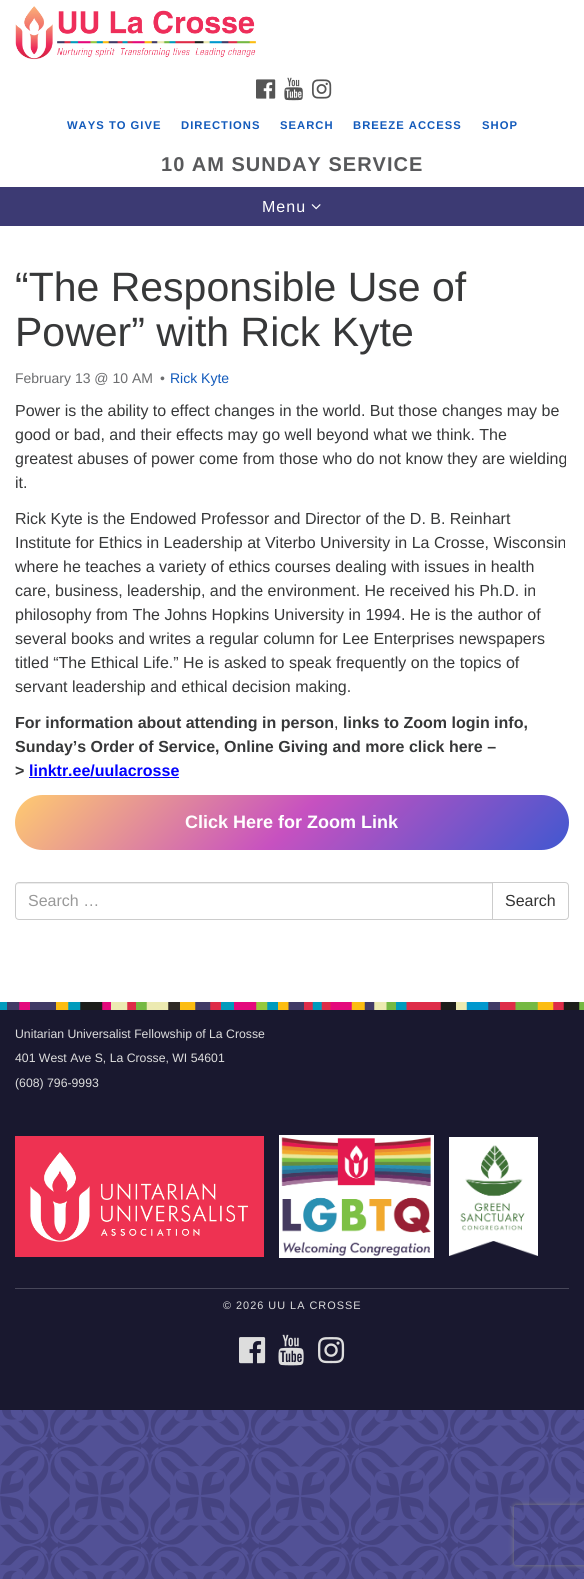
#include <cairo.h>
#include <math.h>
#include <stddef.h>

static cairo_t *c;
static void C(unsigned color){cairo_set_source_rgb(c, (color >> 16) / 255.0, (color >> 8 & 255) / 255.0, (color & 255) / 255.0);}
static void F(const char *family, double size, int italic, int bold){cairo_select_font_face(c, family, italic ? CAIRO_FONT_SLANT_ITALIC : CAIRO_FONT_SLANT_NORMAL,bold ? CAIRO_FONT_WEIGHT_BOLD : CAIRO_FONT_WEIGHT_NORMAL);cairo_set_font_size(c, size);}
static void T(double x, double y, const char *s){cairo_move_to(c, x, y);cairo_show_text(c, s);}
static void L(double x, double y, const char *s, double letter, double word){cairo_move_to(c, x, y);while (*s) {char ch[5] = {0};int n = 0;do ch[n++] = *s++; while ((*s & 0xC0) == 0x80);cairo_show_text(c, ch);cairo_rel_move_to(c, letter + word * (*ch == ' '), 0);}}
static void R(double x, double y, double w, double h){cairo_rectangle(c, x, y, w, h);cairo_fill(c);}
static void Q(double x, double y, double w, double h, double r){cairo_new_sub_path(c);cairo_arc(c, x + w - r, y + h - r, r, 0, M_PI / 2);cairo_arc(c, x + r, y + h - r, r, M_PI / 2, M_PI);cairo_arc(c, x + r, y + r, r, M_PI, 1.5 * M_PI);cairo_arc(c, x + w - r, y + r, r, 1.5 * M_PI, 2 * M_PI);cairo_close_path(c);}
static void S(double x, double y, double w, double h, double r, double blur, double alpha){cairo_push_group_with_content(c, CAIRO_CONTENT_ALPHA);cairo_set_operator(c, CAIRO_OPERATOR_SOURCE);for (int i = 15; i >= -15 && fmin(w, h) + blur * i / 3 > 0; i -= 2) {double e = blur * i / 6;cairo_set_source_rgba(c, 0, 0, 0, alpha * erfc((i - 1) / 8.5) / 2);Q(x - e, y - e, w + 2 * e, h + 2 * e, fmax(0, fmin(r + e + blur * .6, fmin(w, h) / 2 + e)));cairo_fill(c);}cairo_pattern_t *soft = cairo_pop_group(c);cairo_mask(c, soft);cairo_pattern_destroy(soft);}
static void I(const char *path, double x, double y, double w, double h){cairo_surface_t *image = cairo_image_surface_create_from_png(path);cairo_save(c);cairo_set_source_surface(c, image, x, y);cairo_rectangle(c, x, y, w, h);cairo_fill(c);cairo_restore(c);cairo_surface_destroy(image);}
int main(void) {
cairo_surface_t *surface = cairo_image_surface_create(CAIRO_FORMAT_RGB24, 584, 1579);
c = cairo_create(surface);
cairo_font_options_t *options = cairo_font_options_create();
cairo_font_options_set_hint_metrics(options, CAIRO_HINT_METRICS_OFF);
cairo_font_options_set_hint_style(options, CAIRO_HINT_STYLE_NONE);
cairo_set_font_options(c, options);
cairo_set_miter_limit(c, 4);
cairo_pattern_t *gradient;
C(0xffffff);
cairo_paint(c);
I("1.png",0,1410,584,169);
I("2.png",15,6,241,54);
I("3.png",256,79,20,20);
I("4.png",284,77,19,24);
I("5.png",312,79,20,20);
F("Liberation Sans",11.25,0,1);
C(0x125abb);
L(67,129,"WAYS TO GIVE",1,0);
L(181,129,"DIRECTIONS",1,0);
L(280,129,"SEARCH",1,0);
L(353,129,"BREEZE ACCESS",1,0);
L(482,129,"SHOP",1,0);
F("Liberation Sans",20,0,1);
C(0x58595b);
L(161,171,"10 AM SUNDAY SERVICE",1,0);
C(0x3c3a73);
R(0,187,584,39);
F("Liberation Sans",16,0,0);
C(0xffffff);
L(262,212,"Menu",1,0);
I("6.png",311,204,10,6);
F("Liberation Sans",41,0,0);
C(0x373839);
T(15,301,"“The Responsible Use of");
T(15,346,"Power” with Rick Kyte");
F("Liberation Sans",14,0,0);
C(0x6c6d6f);
T(15,383,"February 13 @ 10 AM");
T(160,383,"•");
C(0x125abb);
T(170,383,"Rick Kyte");
F("Liberation Sans",16,0,0);
C(0x373839);
T(15,416,"Power is the ability to effect changes in the world. But those changes may be");
T(15,440,"good or bad, and their effects may go well beyond what we think. The");
T(15,464,"greatest abuses of power come from those who do not know they are wielding");
T(15,488,"it.");
T(15,524,"Rick Kyte is the Endowed Professor and Director of the D. B. Reinhart");
T(15,548,"Institute for Ethics in Leadership at Viterbo University in La Crosse, Wisconsin");
T(15,572,"where he teaches a variety of ethics courses dealing with issues in health");
T(15,596,"care, business, leadership, and the environment. He received his Ph.D. in");
T(15,620,"philosophy from The Johns Hopkins University in 1994. He is the author of");
T(15,644,"several books and writes a regular column for Lee Enterprises newspapers");
T(15,668,"titled “The Ethical Life.” He is asked to speak frequently on the topics of");
T(15,692,"servant leadership and ethical decision making.");
F("Liberation Sans",16,0,1);
T(15,728,"For information about attending in person");
F("Liberation Sans",16,0,0);
T(334,728,",");
F("Liberation Sans",16,0,1);
T(343,728,"links to Zoom login info,");
T(15,752,"Sunday’s Order of Service, Online Giving and more click here –");
T(15,776,">");
C(0x0000ff);
T(29,776,"linktr.ee/uulacrosse");
R(29,777,150,1);
gradient = cairo_pattern_create_linear(140,670,444,975);
cairo_pattern_add_color_stop_rgba(gradient,0,1,0.796,0.439,1);
cairo_pattern_add_color_stop_rgba(gradient,.5,0.78,0.318,0.753,1);
cairo_pattern_add_color_stop_rgba(gradient,1,0.255,0.345,0.816,1);
cairo_set_source(c,gradient);
cairo_pattern_destroy(gradient);
Q(15,795,554,55,27.5);
cairo_fill(c);
F("Liberation Sans",18,0,1);
C(0xffffff);
T(185,828,"Click Here for Zoom Link");
cairo_new_path(c);
cairo_move_to(c,492.5,882.5);
cairo_line_to(c,565,882.5);
cairo_curve_to(c,567,882.5,568.5,884,568.5,886);
cairo_line_to(c,568.5,916);
cairo_curve_to(c,568.5,918,567,919.5,565,919.5);
cairo_line_to(c,492.5,919.5);
cairo_close_path(c);
C(0xcccccc);
cairo_set_line_width(c,1);
cairo_stroke(c);
C(0xffffff);
cairo_new_path(c);
cairo_move_to(c,19,882);
cairo_line_to(c,493,882);
cairo_line_to(c,493,920);
cairo_line_to(c,19,920);
cairo_curve_to(c,17,920,15,918,15,916);
cairo_line_to(c,15,886);
cairo_curve_to(c,15,884,17,882,19,882);
cairo_close_path(c);
cairo_fill(c);
C(0xececec);
cairo_new_path(c);
cairo_move_to(c,19,884);
cairo_line_to(c,492,884);
cairo_line_to(c,492,883);
cairo_line_to(c,19,883);
cairo_curve_to(c,17,883,16,885,16,887);
cairo_curve_to(c,16,885,17,884,19,884);
cairo_close_path(c);
cairo_fill(c);
cairo_new_path(c);
cairo_move_to(c,19,882.5);
cairo_line_to(c,492.5,882.5);
cairo_line_to(c,492.5,919.5);
cairo_line_to(c,19,919.5);
cairo_curve_to(c,17,919.5,15.5,918,15.5,916);
cairo_line_to(c,15.5,886);
cairo_curve_to(c,15.5,884,17,882.5,19,882.5);
cairo_close_path(c);
C(0xcccccc);
cairo_stroke(c);
F("Liberation Sans",16,0,0);
C(0x999999);
T(28,906,"Search …");
C(0x333333);
T(505,906,"Search");
C(0x19182f);
R(0,1010,584,400);
I("7.png",0,1002,584,8);
F("Liberation Sans",12.25,0,0);
C(0xdddddd);
T(15,1038,"Unitarian Universalist Fellowship of La Crosse");
T(15,1062,"401 West Ave S, La Crosse, WI 54601");
T(15,1087,"(608) 796-9993");
I("8.png",15,1136,249,121);
I("9.png",279,1135,155,123);
I("10.png",449,1137,89,119);
C(0x474659);
R(15,1288,554,1);
F("Liberation Sans",10.9,0,0);
C(0xdddddd);
L(223,1309,"© 2026 UU LA CROSSE",1,0);
I("11.png",239,1337,27,27);
I("12.png",278,1334,26,32);
I("13.png",318,1337,27,27);
cairo_save(c);
cairo_set_fill_rule(c,CAIRO_FILL_RULE_EVEN_ODD);
cairo_new_path(c);
cairo_move_to(c,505,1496);
cairo_line_to(c,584,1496);
cairo_line_to(c,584,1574);
cairo_line_to(c,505,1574);
cairo_close_path(c);
cairo_move_to(c,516,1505);
cairo_line_to(c,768,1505);
cairo_curve_to(c,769,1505,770,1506,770,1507);
cairo_line_to(c,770,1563);
cairo_curve_to(c,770,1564,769,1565,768,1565);
cairo_line_to(c,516,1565);
cairo_curve_to(c,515,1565,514,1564,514,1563);
cairo_line_to(c,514,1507);
cairo_curve_to(c,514,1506,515,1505,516,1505);
cairo_close_path(c);
cairo_clip(c);
C(0x808080);
S(514,1505,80,60,2,2.5,1);
cairo_restore(c);
cairo_surface_write_to_png(surface, "o.png");
cairo_font_options_destroy(options);
cairo_destroy(c);
cairo_surface_destroy(surface);
return 0;
}
